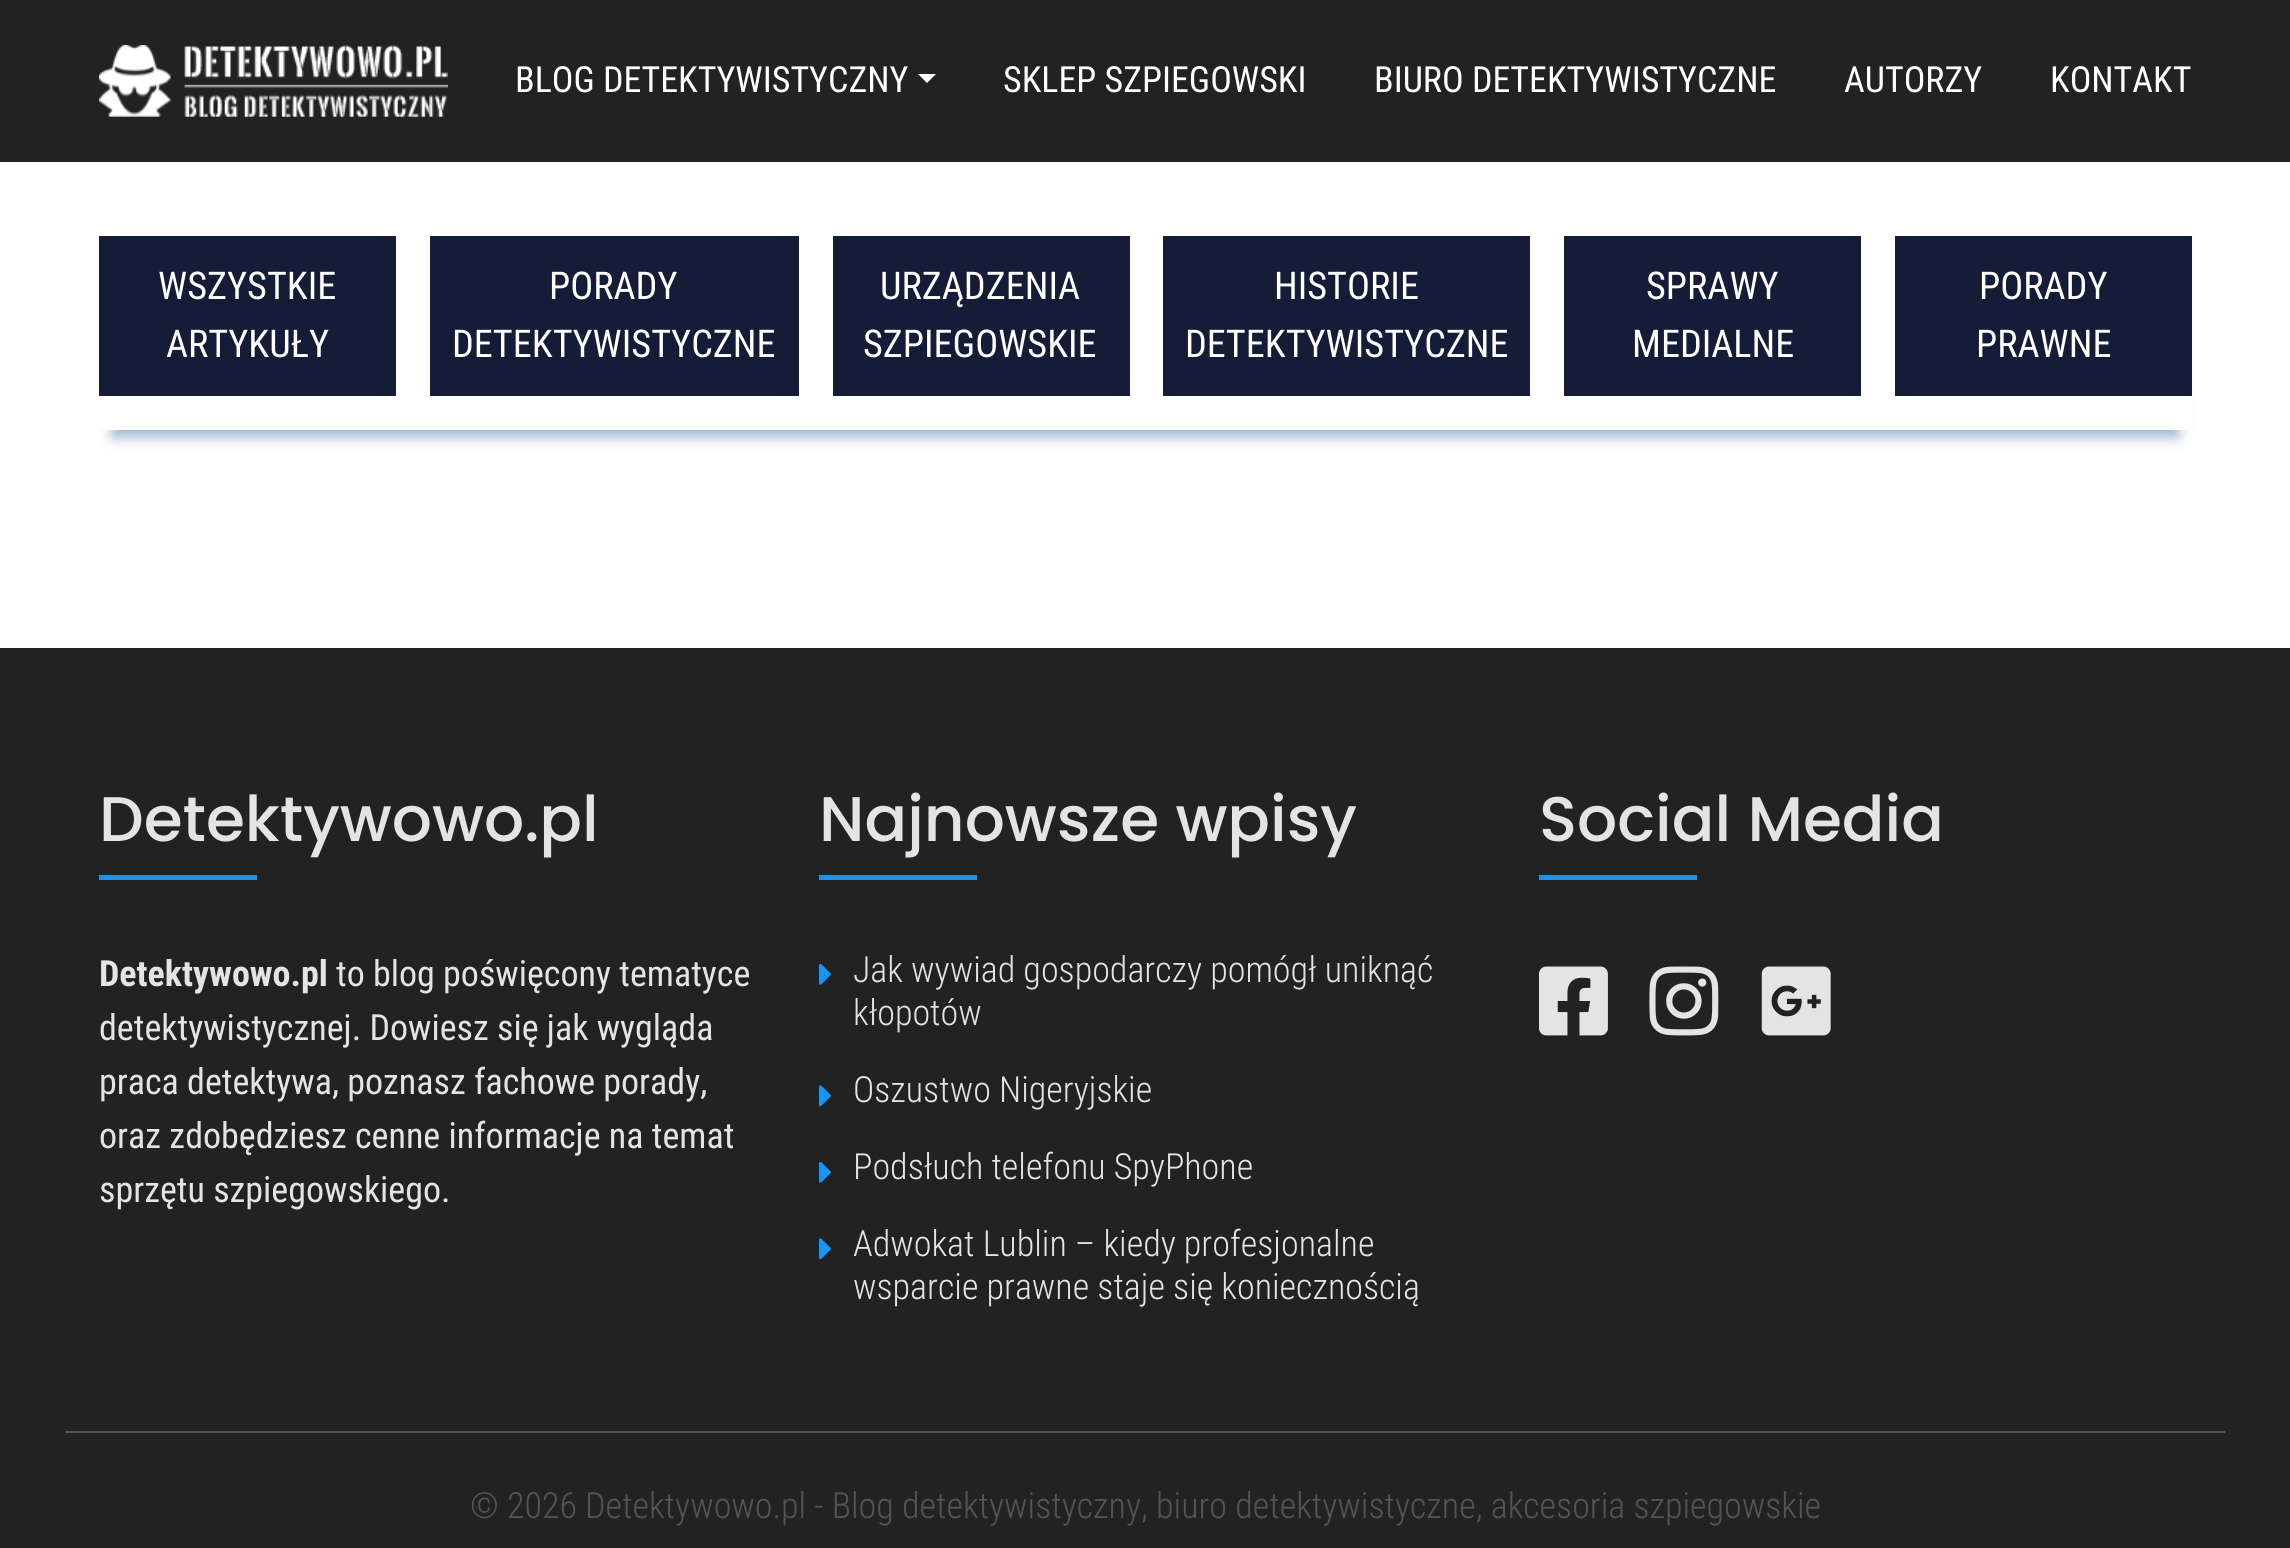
#include <cairo.h>
#include <math.h>
#include <stddef.h>

static cairo_t *c;
static void C(unsigned color){cairo_set_source_rgb(c, (color >> 16) / 255.0, (color >> 8 & 255) / 255.0, (color & 255) / 255.0);}
static void F(const char *family, double size, int italic, int bold){cairo_select_font_face(c, family, italic ? CAIRO_FONT_SLANT_ITALIC : CAIRO_FONT_SLANT_NORMAL,bold ? CAIRO_FONT_WEIGHT_BOLD : CAIRO_FONT_WEIGHT_NORMAL);cairo_set_font_size(c, size);}
static void T(double x, double y, const char *s){cairo_move_to(c, x, y);cairo_show_text(c, s);}
static void R(double x, double y, double w, double h){cairo_rectangle(c, x, y, w, h);cairo_fill(c);}
static void Q(double x, double y, double w, double h, double r){cairo_new_sub_path(c);cairo_arc(c, x + w - r, y + h - r, r, 0, M_PI / 2);cairo_arc(c, x + r, y + h - r, r, M_PI / 2, M_PI);cairo_arc(c, x + r, y + r, r, M_PI, 1.5 * M_PI);cairo_arc(c, x + w - r, y + r, r, 1.5 * M_PI, 2 * M_PI);cairo_close_path(c);}
static void S(double x, double y, double w, double h, double r, double blur, double alpha){cairo_push_group_with_content(c, CAIRO_CONTENT_ALPHA);cairo_set_operator(c, CAIRO_OPERATOR_SOURCE);for (int i = 15; i >= -15 && fmin(w, h) + blur * i / 3 > 0; i -= 2) {double e = blur * i / 6;cairo_set_source_rgba(c, 0, 0, 0, alpha * erfc((i - 1) / 8.5) / 2);Q(x - e, y - e, w + 2 * e, h + 2 * e, fmax(0, fmin(r + e + blur * .6, fmin(w, h) / 2 + e)));cairo_fill(c);}cairo_pattern_t *soft = cairo_pop_group(c);cairo_mask(c, soft);cairo_pattern_destroy(soft);}
static void I(const char *path, double x, double y, double w, double h){cairo_surface_t *image = cairo_image_surface_create_from_png(path);cairo_save(c);cairo_set_source_surface(c, image, x, y);cairo_rectangle(c, x, y, w, h);cairo_fill(c);cairo_restore(c);cairo_surface_destroy(image);}
int main(void) {
cairo_surface_t *surface = cairo_image_surface_create(CAIRO_FORMAT_RGB24, 2290, 1548);
c = cairo_create(surface);
cairo_font_options_t *options = cairo_font_options_create();
cairo_font_options_set_hint_metrics(options, CAIRO_HINT_METRICS_OFF);
cairo_font_options_set_hint_style(options, CAIRO_HINT_STYLE_NONE);
cairo_set_font_options(c, options);
cairo_set_miter_limit(c, 4);
C(0xffffff);
cairo_paint(c);
C(0x222222);
R(0,0,2290,162);
I("1.png",99,45,349,72);
F("Roboto Condensed",36,0,0);
C(0xffffff);
T(515,92,"BLOG DETEKTYWISTYCZNY");
cairo_new_path(c);
cairo_move_to(c,918,74);
cairo_line_to(c,936,74);
cairo_line_to(c,927,83);
cairo_close_path(c);
cairo_fill(c);
T(1003,92,"SKLEP SZPIEGOWSKI");
T(1374,92,"BIURO DETEKTYWISTYCZNE");
T(1844,92,"AUTORZY");
T(2050,92,"KONTAKT");
C(0x003f84);
S(113,236,2065,201,0,7,.4);
C(0xffffff);
R(99,222,2093,208);
C(0x151c38);
R(99,236,297,160);
F("Roboto Condensed",38.25,0,0);
C(0xffffff);
T(158,299,"WSZYSTKIE");
T(166,357,"ARTYKUŁY");
C(0x151c38);
R(430,236,369,160);
C(0xffffff);
T(549,299,"PORADY");
T(452,357,"DETEKTYWISTYCZNE");
C(0x151c38);
R(833,236,297,160);
C(0xffffff);
T(880,299,"URZĄDZENIA");
T(863,357,"SZPIEGOWSKIE");
C(0x151c38);
R(1163,236,367,160);
C(0xffffff);
T(1274,299,"HISTORIE");
T(1185,357,"DETEKTYWISTYCZNE");
C(0x151c38);
R(1564,236,297,160);
C(0xffffff);
T(1646,299,"SPRAWY");
T(1632,357,"MEDIALNE");
C(0x151c38);
R(1895,236,297,160);
C(0xffffff);
T(1979,299,"PORADY");
T(1976,357,"PRAWNE");
C(0x222222);
R(0,648,2290,900);
F("Poppins Medium",63,0,0);
C(0xe4e4e4);
T(99,841,"Detektywowo.pl");
C(0x1596f5);
R(99,875,158,5);
F("Roboto Condensed",36,0,1);
C(0xe4e4e4);
T(99,986,"Detektywowo.pl");
F("Roboto Condensed",36,0,0);
T(336,986,"to blog poświęcony tematyce");
T(99,1040,"detektywistycznej. Dowiesz się jak wygląda");
T(99,1094,"praca detektywa, poznasz fachowe porady,");
T(99,1148,"oraz zdobędziesz cenne informacje na temat");
T(99,1202,"sprzętu szpiegowskiego.");
F("Poppins Medium",63,0,0);
T(819,841,"Najnowsze wpisy");
C(0x1596f5);
R(819,875,158,5);
I("2.png",819,963,12,22);
F("Roboto Condensed Light",36,0,0);
C(0xe4e4e4);
T(853,982,"Jak wywiad gospodarczy pomógł uniknąć");
T(853,1025,"kłopotów");
I("3.png",819,1085,12,22);
T(853,1102,"Oszustwo Nigeryjskie");
I("2.png",819,1161,12,22);
T(853,1179,"Podsłuch telefonu SpyPhone");
I("3.png",819,1238,12,22);
T(853,1256,"Adwokat Lublin – kiedy profesjonalne");
T(853,1299,"wsparcie prawne staje się koniecznością");
F("Poppins Medium",63,0,0);
T(1539,841,"Social Media");
C(0x1596f5);
R(1539,875,158,5);
I("4.png",1539,966,69,70);
I("5.png",1649,966,70,70);
I("6.png",1761,966,70,70);
C(0x545454);
R(65,1431,2160,2);
F("Roboto Condensed Light",36,0,0);
T(470,1518,"© 2026 Detektywowo.pl - Blog detektywistyczny, biuro detektywistyczne, akcesoria szpiegowskie");
cairo_surface_write_to_png(surface, "o.png");
cairo_font_options_destroy(options);
cairo_destroy(c);
cairo_surface_destroy(surface);
return 0;
}
